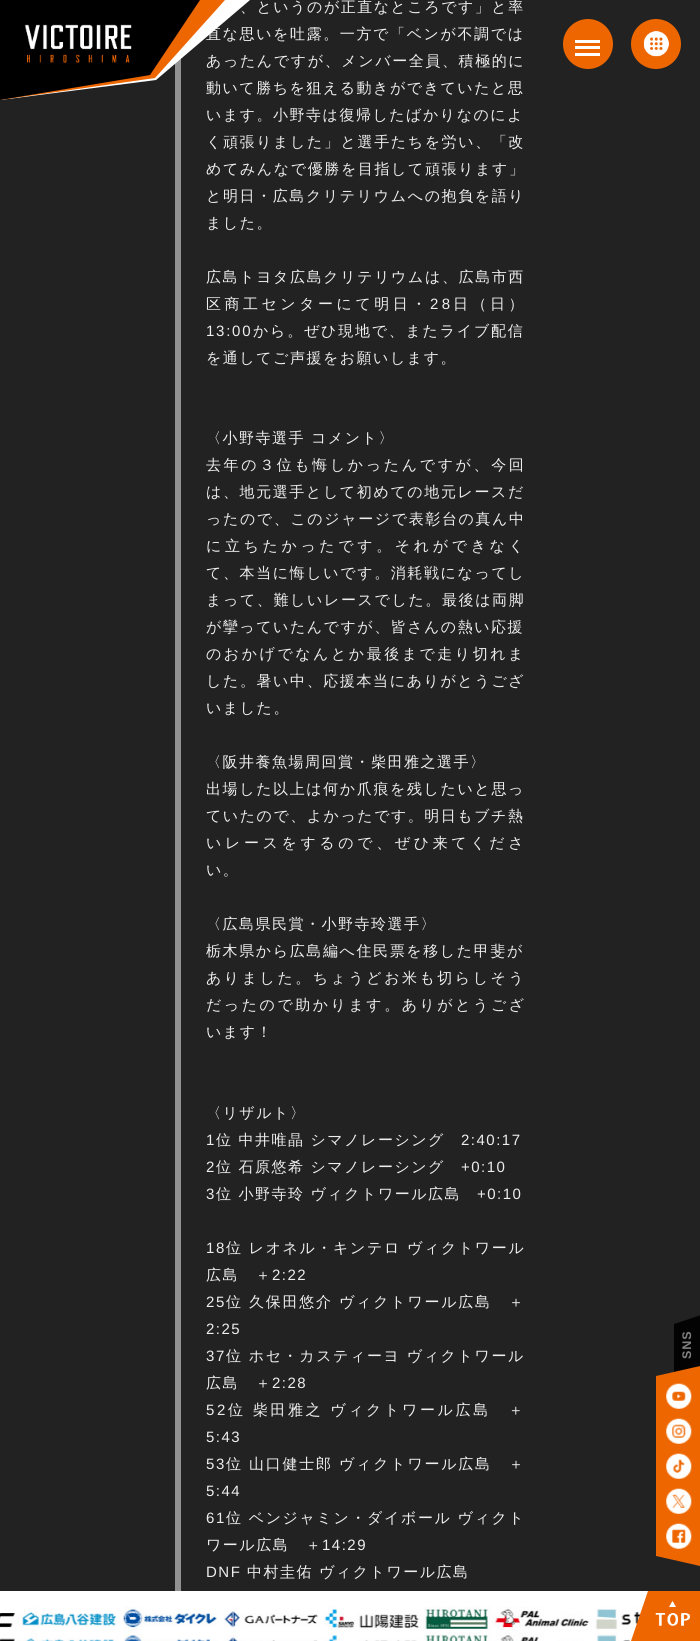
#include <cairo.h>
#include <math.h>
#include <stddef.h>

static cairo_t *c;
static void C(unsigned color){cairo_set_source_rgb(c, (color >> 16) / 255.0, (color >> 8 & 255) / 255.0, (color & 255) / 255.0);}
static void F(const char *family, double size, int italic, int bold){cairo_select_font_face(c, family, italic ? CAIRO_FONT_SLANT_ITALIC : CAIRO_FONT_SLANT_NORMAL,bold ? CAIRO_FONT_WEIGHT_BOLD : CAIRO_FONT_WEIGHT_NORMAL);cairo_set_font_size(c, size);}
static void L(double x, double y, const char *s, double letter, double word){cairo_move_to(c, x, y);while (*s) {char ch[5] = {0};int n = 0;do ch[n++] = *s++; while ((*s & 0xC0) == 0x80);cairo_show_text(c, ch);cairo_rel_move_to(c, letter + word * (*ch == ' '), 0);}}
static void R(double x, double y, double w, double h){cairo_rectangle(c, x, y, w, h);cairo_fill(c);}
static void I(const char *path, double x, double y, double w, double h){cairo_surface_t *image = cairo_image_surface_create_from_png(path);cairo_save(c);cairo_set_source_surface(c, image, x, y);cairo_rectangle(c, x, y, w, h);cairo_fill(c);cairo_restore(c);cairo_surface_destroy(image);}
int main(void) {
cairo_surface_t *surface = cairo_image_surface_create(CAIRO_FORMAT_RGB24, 700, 1641);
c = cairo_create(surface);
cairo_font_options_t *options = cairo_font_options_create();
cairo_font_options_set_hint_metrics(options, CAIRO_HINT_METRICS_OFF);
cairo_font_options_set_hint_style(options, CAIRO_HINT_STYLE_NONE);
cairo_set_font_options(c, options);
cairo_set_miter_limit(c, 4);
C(0x222222);
cairo_paint(c);
C(0x919191);
R(175,58,6,1533);
F("WenQuanYi Zen Hei Medium",15,0,0);
C(0xeeeeee);
L(240,12,"、というのが正直なところです」と率",1.5,0);
L(206,39,"直な思いを吐露。一方で「ベンが不調では",1.6,0);
L(206,66,"あったんですが、メンバー全員、積極的に",1.6,0);
L(206,93,"動いて勝ちを狙える動きができていたと思",1.5,0);
L(206,120,"います。小野寺は復帰したばかりなのによ",1.5,0);
L(206,147,"く頑張りました」と選手たちを労い、「改",1.6,0);
L(206,174,"めてみんなで優勝を目指して頑張ります」",1.6,0);
L(206,201,"と明日・広島クリテリウムへの抱負を語り",1.6,0);
L(206,228,"ました。",1.5,0);
L(206,282,"広島トヨタ広島クリテリウムは、広島市西",1.6,0);
L(206,309,"区商工センターにて明日・",3.5,0);
F("Liberation Sans",15,0,0);
L(430,309,"28",3.5,0);
F("WenQuanYi Zen Hei Medium",15,0,0);
L(453,309,"日（日）",3.5,0);
F("Liberation Sans",15,0,0);
L(206,336,"13:00",1.75,0);
F("WenQuanYi Zen Hei Medium",15,0,0);
L(253,336,"から。ぜひ現地で、またライブ配信",1.75,0);
L(206,363,"を通してご声援をお願いします。",1.5,0);
L(206,443,"〈小野寺選手 コメント〉",1.5,0);
L(206,470,"去年の３位も悔しかったんですが、今回",2.6,0);
L(206,497,"は、地元選手として初めての地元レースだ",1.6,0);
L(206,524,"ったので、このジャージで表彰台の真ん中",1.6,0);
L(206,551,"に立ちたかったです。それができなく",3.6,0);
L(206,578,"て、本当に悔しいです。消耗戦になってし",1.6,0);
L(206,605,"まって、難しいレースでした。最後は両脚",1.6,0);
L(206,632,"が攣っていたんですが、皆さんの熱い応援",1.5,0);
L(206,659,"のおかげでなんとか最後まで走り切れま",2.5,0);
L(206,686,"した。暑い中、応援本当にありがとうござ",1.6,0);
L(206,713,"いました。",1.5,0);
L(206,767,"〈阪井養魚場周回賞・柴田雅之選手〉",1.5,0);
L(206,794,"出場した以上は何か爪痕を残したいと思っ",1.6,0);
L(206,821,"ていたので、よかったです。明日もブチ熱",1.5,0);
L(206,848,"いレースをするので、ぜひ来てくださ",3.6,0);
L(206,875,"い。",1.5,0);
L(206,929,"〈広島県民賞・小野寺玲選手〉",1.5,0);
L(206,956,"栃木県から広島編へ住民票を移した甲斐が",1.6,0);
L(206,983,"ありました。ちょうどお米も切らしそう",2.5,0);
L(206,1010,"だったので助かります。ありがとうござ",2.5,0);
L(206,1037,"います！",1.5,0);
L(206,1118,"〈リザルト〉",1.5,0);
F("Liberation Sans",15,0,0);
L(206,1145,"1",1.5,0);
F("WenQuanYi Zen Hei Medium",15,0,0);
L(216,1145,"位 中井唯晶 シマノレーシング",1.5,0);
F("Liberation Sans",15,0,0);
L(461,1145,"2:40:17",1.5,0);
L(206,1172,"2",1.5,0);
F("WenQuanYi Zen Hei Medium",15,0,0);
L(216,1172,"位 石原悠希 シマノレーシング",1.5,0);
F("Liberation Sans",15,0,0);
L(461,1172,"+0:10",1.5,0);
L(206,1199,"3",1.5,0);
F("WenQuanYi Zen Hei Medium",15,0,0);
L(216,1199,"位 小野寺玲 ヴィクトワール広島",1.5,0);
F("Liberation Sans",15,0,0);
L(477,1199,"+0:10",1.5,0);
L(206,1253,"18",1.6,0);
F("WenQuanYi Zen Hei Medium",15,0,0);
L(226,1253,"位 レオネル・キンテロ ヴィクトワール",1.6,0);
L(206,1280,"広島　＋",1.5,0);
F("Liberation Sans",15,0,0);
L(272,1280,"2:22",1.5,0);
L(206,1307,"25",1.75,0);
F("WenQuanYi Zen Hei Medium",15,0,0);
L(226,1307,"位 久保田悠介 ヴィクトワール広島　＋",1.75,0);
F("Liberation Sans",15,0,0);
L(206,1334,"2:25",1.5,0);
L(206,1361,"37",1.6,0);
F("WenQuanYi Zen Hei Medium",15,0,0);
L(226,1361,"位 ホセ・カスティーヨ ヴィクトワール",1.6,0);
L(206,1388,"広島　＋",1.5,0);
F("Liberation Sans",15,0,0);
L(272,1388,"2:28",1.5,0);
L(206,1415,"52",2.6,0);
F("WenQuanYi Zen Hei Medium",15,0,0);
L(228,1415,"位 柴田雅之 ヴィクトワール広島　＋",2.6,0);
F("Liberation Sans",15,0,0);
L(206,1442,"5:43",1.5,0);
L(206,1469,"53",1.75,0);
F("WenQuanYi Zen Hei Medium",15,0,0);
L(226,1469,"位 山口健士郎 ヴィクトワール広島　＋",1.75,0);
F("Liberation Sans",15,0,0);
L(206,1496,"5:44",1.5,0);
L(206,1523,"61",1.6,0);
F("WenQuanYi Zen Hei Medium",15,0,0);
L(226,1523,"位 ベンジャミン・ダイボール ヴィクト",1.6,0);
L(206,1550,"ワール広島　＋",1.5,0);
F("Liberation Sans",15,0,0);
L(322,1550,"14:29",1.5,0);
L(206,1577,"DNF",1.5,0);
F("WenQuanYi Zen Hei Medium",15,0,0);
L(247,1577,"中村圭佑 ヴィクトワール広島",1.5,0);
C(0xffffff);
R(0,1591,648,41);
I("9.png",0,1606,643,25);
I("10.png",0,1632,634,9);
C(0xee6600);
cairo_new_path(c);
cairo_move_to(c,648,1591);
cairo_line_to(c,631,1641);
cairo_line_to(c,700,1641);
cairo_line_to(c,700,1591);
cairo_close_path(c);
cairo_fill(c);
I("1.png",655,1600,35,26);
C(0xffffff);
cairo_new_path(c);
cairo_move_to(c,0,0);
cairo_line_to(c,0,100);
cairo_line_to(c,156,80);
cairo_line_to(c,250,0);
cairo_close_path(c);
cairo_fill(c);
C(0xee6600);
cairo_new_path(c);
cairo_move_to(c,0,0);
cairo_line_to(c,225,0);
cairo_line_to(c,155,78);
cairo_line_to(c,0,100);
cairo_close_path(c);
cairo_fill(c);
C(0x000000);
cairo_new_path(c);
cairo_move_to(c,0,0);
cairo_line_to(c,200,0);
cairo_line_to(c,150,75);
cairo_line_to(c,0,100);
cairo_close_path(c);
cairo_fill(c);
I("2.png",24,24,108,39);
C(0xee6600);
cairo_arc(c,588,44,25,0,2 * M_PI);
cairo_fill(c);
C(0xffffff);
R(575,46,25,3);
R(575,40,25,3);
R(575,53,25,3);
C(0xee6600);
cairo_arc(c,656,44,25,0,2 * M_PI);
cairo_fill(c);
I("3.png",643,31,26,26);
C(0x030303);
cairo_new_path(c);
cairo_move_to(c,674,1440);
cairo_line_to(c,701,1440);
cairo_line_to(c,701,1315);
cairo_line_to(c,674,1324);
cairo_close_path(c);
cairo_fill(c);
F("Liberation Sans",12.5,0,1);
C(0x818181);
cairo_save(c);
cairo_translate(c,691,1359);
cairo_rotate(c,-90 * M_PI / 180);
L(0,0,"SNS",1,0);
cairo_restore(c);
C(0xee6600);
cairo_new_path(c);
cairo_move_to(c,656,1376);
cairo_line_to(c,656,1556);
cairo_line_to(c,700,1566);
cairo_line_to(c,700,1366);
cairo_close_path(c);
cairo_fill(c);
I("4.png",666,1383,26,26);
I("5.png",666,1418,26,26);
I("6.png",666,1453,26,26);
I("7.png",666,1488,26,26);
I("8.png",666,1523,26,26);
cairo_surface_write_to_png(surface, "o.png");
cairo_font_options_destroy(options);
cairo_destroy(c);
cairo_surface_destroy(surface);
return 0;
}
